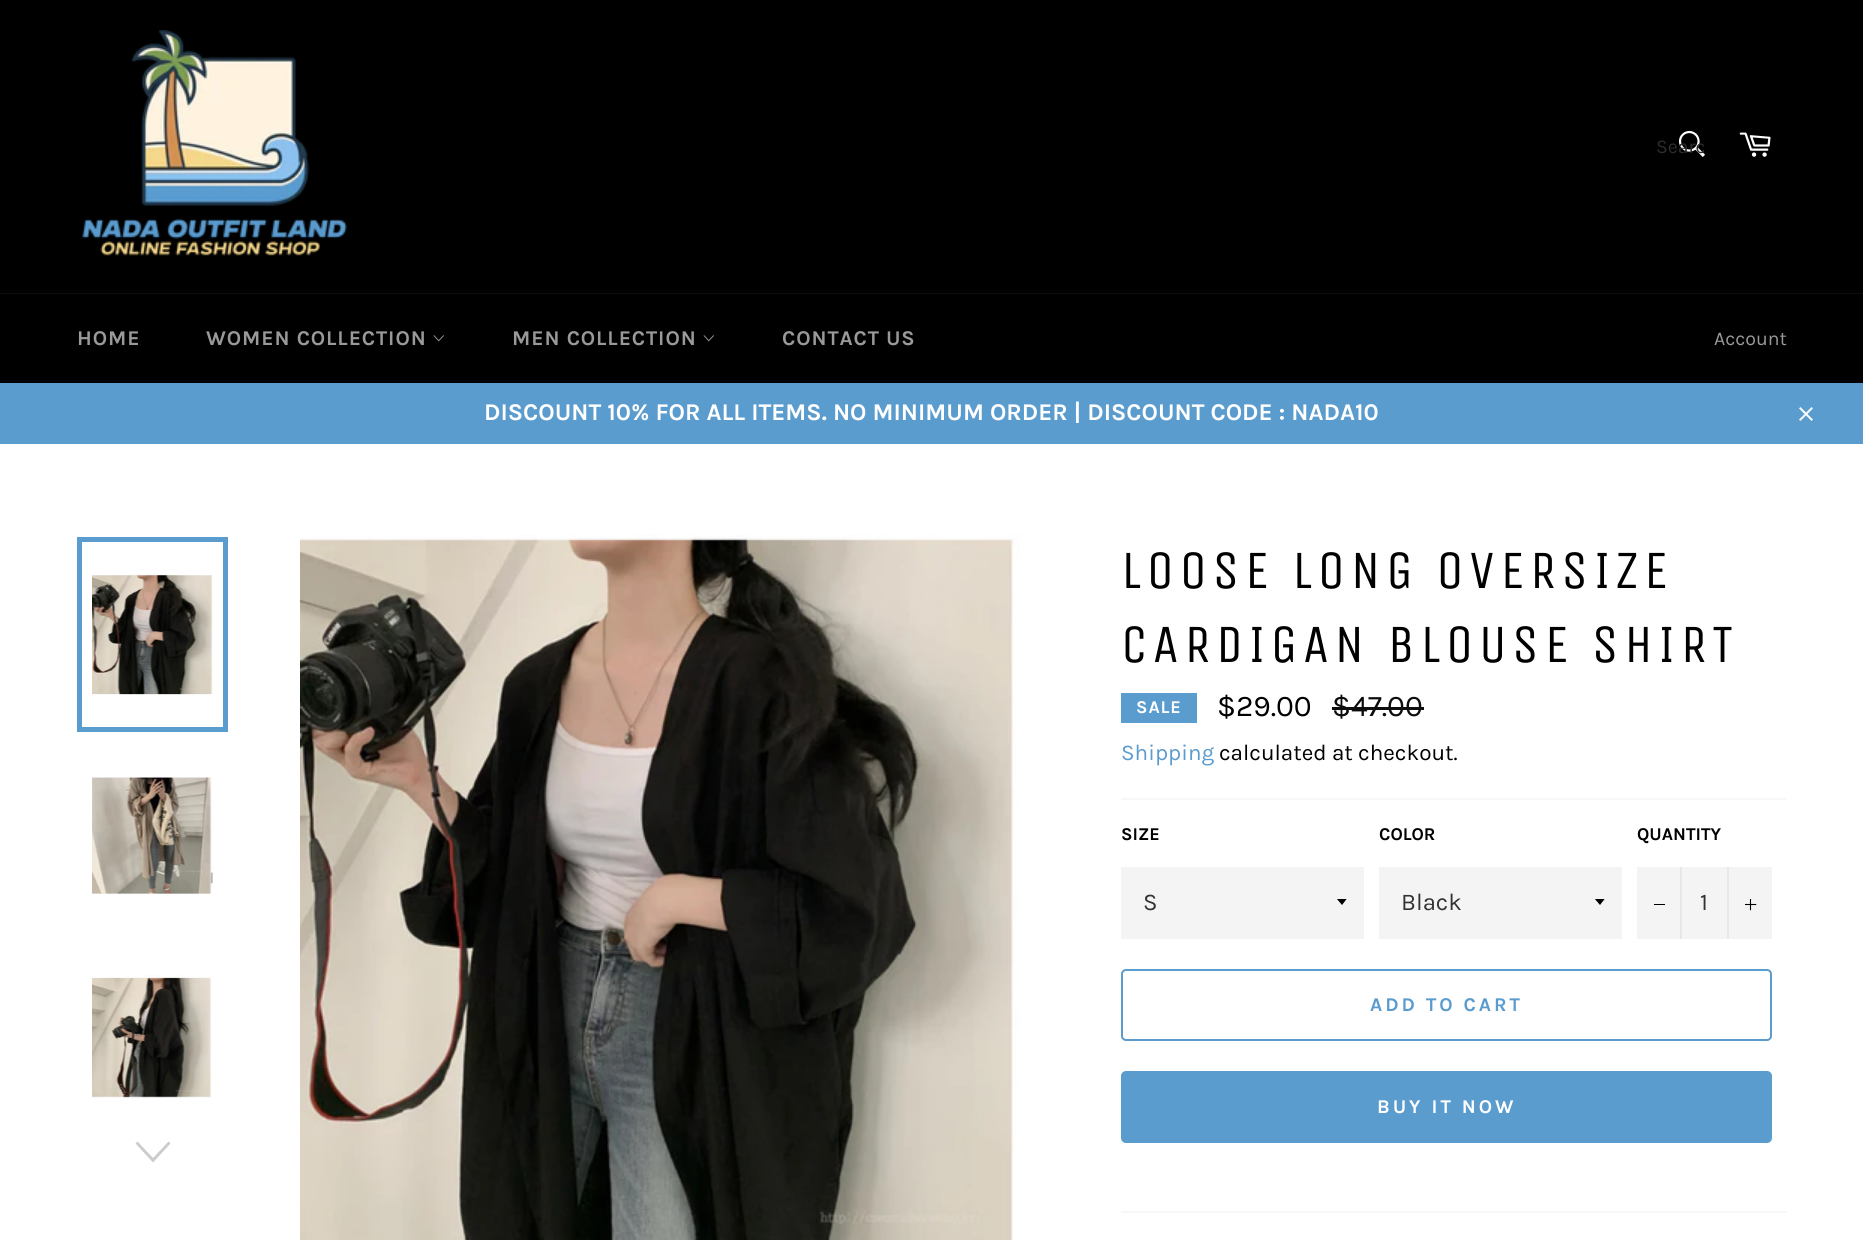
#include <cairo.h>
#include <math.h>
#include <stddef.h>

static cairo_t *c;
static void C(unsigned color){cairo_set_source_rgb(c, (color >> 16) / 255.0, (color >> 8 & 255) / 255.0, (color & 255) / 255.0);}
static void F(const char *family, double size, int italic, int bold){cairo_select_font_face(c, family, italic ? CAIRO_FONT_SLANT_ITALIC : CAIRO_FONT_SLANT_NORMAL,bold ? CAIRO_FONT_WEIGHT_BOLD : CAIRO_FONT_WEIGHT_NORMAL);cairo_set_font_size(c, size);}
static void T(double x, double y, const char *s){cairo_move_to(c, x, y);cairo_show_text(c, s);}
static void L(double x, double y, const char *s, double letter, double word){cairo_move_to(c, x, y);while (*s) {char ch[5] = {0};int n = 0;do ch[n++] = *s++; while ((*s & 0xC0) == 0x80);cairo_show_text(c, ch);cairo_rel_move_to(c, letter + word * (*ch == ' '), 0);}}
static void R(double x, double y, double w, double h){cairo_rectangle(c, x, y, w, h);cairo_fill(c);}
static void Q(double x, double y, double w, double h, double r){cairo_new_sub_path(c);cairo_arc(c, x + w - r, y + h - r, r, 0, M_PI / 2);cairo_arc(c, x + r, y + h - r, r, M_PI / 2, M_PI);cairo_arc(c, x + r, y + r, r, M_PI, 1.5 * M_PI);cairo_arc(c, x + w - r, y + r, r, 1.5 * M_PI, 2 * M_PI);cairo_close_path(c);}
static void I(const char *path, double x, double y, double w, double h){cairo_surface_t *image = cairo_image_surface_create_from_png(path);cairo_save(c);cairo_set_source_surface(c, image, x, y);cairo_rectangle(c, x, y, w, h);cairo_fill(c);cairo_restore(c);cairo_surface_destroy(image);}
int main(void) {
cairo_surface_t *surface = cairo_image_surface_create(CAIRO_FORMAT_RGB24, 1863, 1240);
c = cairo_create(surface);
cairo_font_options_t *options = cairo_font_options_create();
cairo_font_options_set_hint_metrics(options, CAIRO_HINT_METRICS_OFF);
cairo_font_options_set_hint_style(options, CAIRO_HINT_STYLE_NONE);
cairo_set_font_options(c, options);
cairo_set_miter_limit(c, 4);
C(0x000000);
cairo_paint(c);
I("1.png",82,30,265,226);
I("2.png",1678,130,27,27);
cairo_save(c);
cairo_rectangle(c,1656,135,48,23);
cairo_clip(c);
F("Karla",19.5,0,0);
C(0x2c2c2c);
T(1656,153,"Searc");
cairo_restore(c);
I("3.png",1739,132,32,25);
C(0x0d0d0d);
R(0,293,1863,1);
F("Karla",21,0,1);
C(0x999999);
L(77,345,"HOME",.9,0);
L(206,345,"WOMEN COLLECTION",.9,0);
I("4.png",433,335,11,7);
L(512,345,"MEN COLLECTION",.9,0);
I("4.png",703,335,11,7);
L(782,345,"CONTACT US",.9,0);
F("Karla",19.5,0,0);
T(1714,345,"Account");
C(0x5b9ccf);
R(0,383,1863,61);
F("Karla",24,0,1);
C(0xffffff);
T(484,420,"DISCOUNT 10% FOR ALL ITEMS. NO MINIMUM ORDER | DISCOUNT CODE : NADA10");
I("5.png",1799,407,14,14);
R(0,444,1863,796);
I("6.png",92,574,121,121);
cairo_rectangle(c,79.5,539.5,146,190);
C(0x5b9ccf);
cairo_set_line_width(c,5);
cairo_stroke(c);
I("7.png",92,777,122,117);
I("8.png",92,975,120,123);
C(0xcccccc);
cairo_new_path(c);
cairo_move_to(c,168.5,1141.5);
cairo_line_to(c,170.5,1143.5);
cairo_line_to(c,153,1162.5);
cairo_line_to(c,135.5,1143.5);
cairo_line_to(c,137.5,1141.5);
cairo_line_to(c,153,1158);
cairo_close_path(c);
cairo_fill(c);
I("9.png",300,534,720,706);
F("Unica One",54,0,0);
C(0x000000);
L(1121,588,"LOOSE LONG OVERSIZE",5.4,0);
L(1121,662,"CARDIGAN BLOUSE SHIRT",5.4,0);
C(0x5b9ccf);
R(1121,693,76,30);
F("Karla",18,0,1);
C(0xffffff);
L(1136,713,"SALE",.9,0);
F("Karla",30,0,0);
C(0x000000);
T(1217,716,"$29.00");
C(0x0d0d0d);
T(1332,716,"$47.00");
R(1332,707,92,3);
F("Karla",22.5,0,0);
C(0x5b9ccf);
T(1121,760,"Shipping");
C(0x000000);
T(1219,760,"calculated at checkout.");
C(0xf7f7f7);
R(1121,798,666,2);
F("Karla",18,0,1);
C(0x000000);
T(1121,840,"SIZE");
C(0xf4f4f4);
R(1121,867,243,72);
cairo_save(c);
cairo_rectangle(c,1337,899,12,7);
cairo_clip(c);
C(0x000000);
cairo_new_path(c);
cairo_move_to(c,1336.5,898.5);
cairo_line_to(c,1342,905);
cairo_line_to(c,1347,898.5);
cairo_close_path(c);
cairo_fill(c);
cairo_restore(c);
F("Karla",24,0,0);
C(0x333333);
T(1143,910,"S");
F("Karla",18,0,1);
C(0x000000);
T(1379,840,"COLOR");
C(0xf4f4f4);
R(1379,867,243,72);
cairo_save(c);
cairo_rectangle(c,1595,899,12,7);
cairo_clip(c);
C(0x000000);
cairo_new_path(c);
cairo_move_to(c,1594.5,898.5);
cairo_line_to(c,1600,905);
cairo_line_to(c,1605,898.5);
cairo_close_path(c);
cairo_fill(c);
cairo_restore(c);
F("Karla",24,0,0);
C(0x333333);
T(1401,910,"Black");
F("Karla",18,0,1);
C(0x000000);
T(1637,840,"QUANTITY");
C(0xf4f4f4);
R(1637,867,135,72);
C(0xe7e7e7);
R(1680,867,2,72);
C(0x000000);
R(1654,904,11,1);
F("Karla",24,0,0);
C(0x333333);
T(1700,910,"1");
C(0xe7e7e7);
R(1727,867,2,72);
I("10.png",1745,899,12,12);
Q(1122,970,649,70,4);
C(0x5b9ccf);
cairo_set_line_width(c,2);
cairo_stroke(c);
F("Karla",19.5,0,1);
L(1370,1011,"ADD TO CART",3,0);
Q(1121,1071,651,72,5);
cairo_fill(c);
C(0xffffff);
L(1377,1113,"BUY IT NOW",3,0);
C(0xf7f7f7);
R(1121,1211,666,2);
cairo_surface_write_to_png(surface, "o.png");
cairo_font_options_destroy(options);
cairo_destroy(c);
cairo_surface_destroy(surface);
return 0;
}
